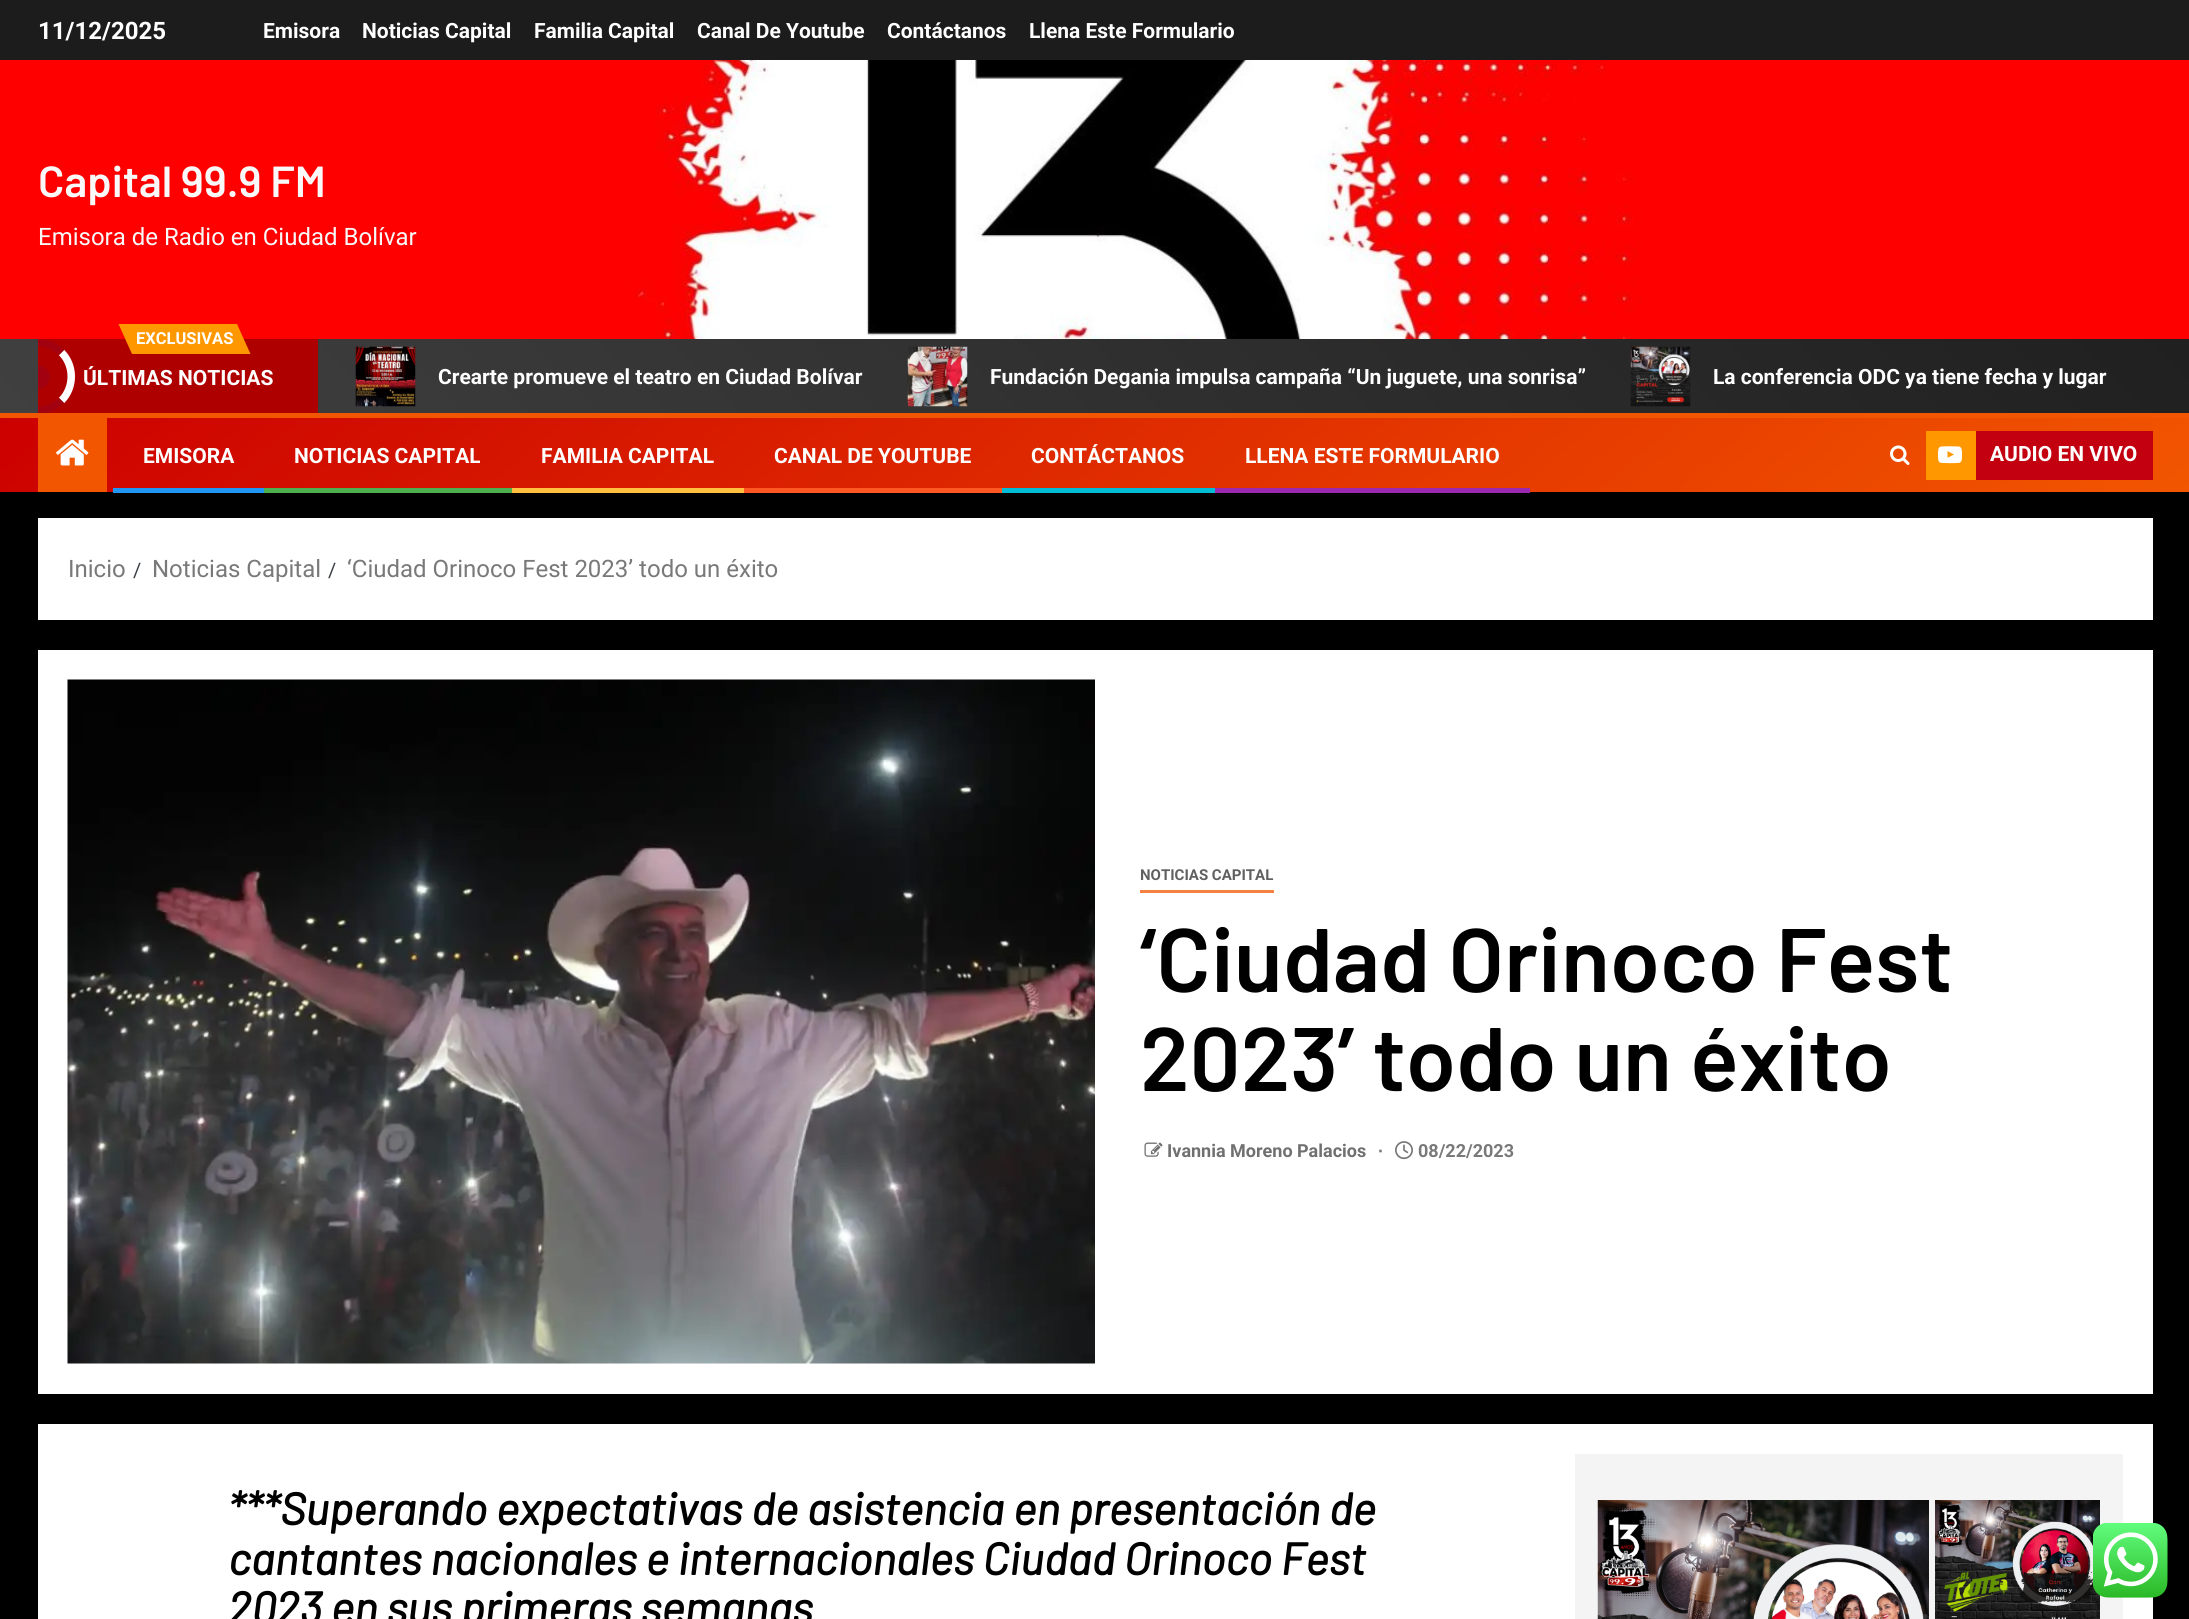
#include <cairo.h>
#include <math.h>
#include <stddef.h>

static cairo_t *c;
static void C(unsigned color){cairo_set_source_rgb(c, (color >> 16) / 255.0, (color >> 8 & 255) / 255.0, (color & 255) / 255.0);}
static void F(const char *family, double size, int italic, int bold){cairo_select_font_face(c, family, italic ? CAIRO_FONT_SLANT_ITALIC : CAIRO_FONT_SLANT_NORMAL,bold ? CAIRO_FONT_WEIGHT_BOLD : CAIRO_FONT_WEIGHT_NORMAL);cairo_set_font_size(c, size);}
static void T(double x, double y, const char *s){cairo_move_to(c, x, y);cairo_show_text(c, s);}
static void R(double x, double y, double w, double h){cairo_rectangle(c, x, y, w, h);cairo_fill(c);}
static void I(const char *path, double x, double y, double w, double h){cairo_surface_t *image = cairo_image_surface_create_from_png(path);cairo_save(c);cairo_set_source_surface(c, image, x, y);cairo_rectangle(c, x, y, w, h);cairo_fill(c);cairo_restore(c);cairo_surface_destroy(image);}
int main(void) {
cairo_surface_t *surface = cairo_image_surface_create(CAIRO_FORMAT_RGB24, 2189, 1619);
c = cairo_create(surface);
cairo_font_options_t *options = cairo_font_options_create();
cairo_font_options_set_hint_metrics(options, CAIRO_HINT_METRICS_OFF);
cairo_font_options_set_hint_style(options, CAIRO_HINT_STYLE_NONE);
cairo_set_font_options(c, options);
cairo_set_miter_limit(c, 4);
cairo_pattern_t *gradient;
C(0x000000);
cairo_paint(c);
C(0x1c1c1c);
R(0,0,2189,60);
F("Roboto",24,0,1);
C(0xffffff);
T(38,39,"11/12/2025");
F("Roboto",21,0,1);
T(263,38,"Emisora");
T(362,38,"Noticias Capital");
T(534,38,"Familia Capital");
T(697,38,"Canal De Youtube");
T(887,38,"Contáctanos");
T(1029,38,"Llena Este Formulario");
I("1.png",0,60,2189,279);
F("Barlow SemiBold",43.5,0,0);
C(0xf9f9f9);
T(38,197,"Capital 99.9 FM");
F("Roboto",24,0,0);
T(38,245,"Emisora de Radio en Ciudad Bolívar");
gradient = cairo_pattern_create_linear(529,942,1661,-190);
cairo_pattern_add_color_stop_rgba(gradient,0,0.251,0.251,0.251,1);
cairo_pattern_add_color_stop_rgba(gradient,1,0.125,0.125,0.125,1);
cairo_set_source(c,gradient);
cairo_pattern_destroy(gradient);
R(0,339,2189,74);
C(0xaf0000);
R(38,339,280,74);
C(0xff9800);
R(132,324,105,30);
cairo_new_path(c);
cairo_move_to(c,118.5,324);
cairo_line_to(c,132,324);
cairo_line_to(c,132,354);
cairo_close_path(c);
cairo_fill(c);
F("Roboto",16.5,0,1);
C(0xffffff);
T(136,344,"EXCLUSIVAS");
C(0xff9800);
cairo_new_path(c);
cairo_move_to(c,250.5,354);
cairo_line_to(c,237,354);
cairo_line_to(c,237,324);
cairo_close_path(c);
cairo_fill(c);
cairo_new_path(c);
cairo_move_to(c,61.5,352.5);
cairo_curve_to(c,74.5,365.5,74.5,387.5,61.5,400.5);
C(0xffffff);
cairo_set_line_width(c,7.5);
cairo_stroke(c);
cairo_save(c);
cairo_rectangle(c,38,339,280,74);
cairo_clip(c);
cairo_new_path(c);
cairo_move_to(c,13.5,352.5);
cairo_curve_to(c,26.5,339.5,48.5,339.5,61.5,352.5);
C(0xa2020f);
cairo_stroke(c);
cairo_new_path(c);
cairo_move_to(c,61.5,400.5);
cairo_curve_to(c,48.5,413.5,26.5,413.5,13.5,400.5);
cairo_stroke(c);
cairo_restore(c);
C(0xa2020f);
cairo_new_path(c);
cairo_move_to(c,38,365);
cairo_curve_to(c,44.5,365,50,370.5,50,377);
cairo_curve_to(c,50,383.5,44.5,389,38,389);
cairo_close_path(c);
cairo_fill(c);
F("Roboto",21,0,1);
C(0xffffff);
T(83,385,"ÚLTIMAS NOTICIAS");
I("2.png",355,346,61,61);
T(438,384,"Crearte promueve el teatro en Ciudad Bolívar");
I("3.png",907,346,61,61);
T(990,384,"Fundación Degania impulsa campaña “Un juguete, una sonrisa”");
I("4.png",1630,346,61,61);
T(1713,384,"La conferencia ODC ya tiene fecha y lugar");
gradient = cairo_pattern_create_linear(624,-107,1566,1016);
cairo_pattern_add_color_stop_rgba(gradient,0,0.8,0,0,1);
cairo_pattern_add_color_stop_rgba(gradient,1,0.949,0.337,0,1);
cairo_set_source(c,gradient);
cairo_pattern_destroy(gradient);
R(0,418,2189,74);
C(0xf25600);
R(0,413,2189,5);
R(38,418,69,74);
I("5.png",56,439,33,27);
C(0xffffff);
T(143,463,"EMISORA");
C(0x2196f3);
R(113,488,151,5);
C(0xffffff);
T(294,463,"NOTICIAS CAPITAL");
C(0x4caf50);
R(264,488,248,5);
C(0xffffff);
T(541,463,"FAMILIA CAPITAL");
C(0xffbf3f);
R(512,488,232,5);
C(0xffffff);
T(774,463,"CANAL DE YOUTUBE");
C(0xff5722);
R(744,488,258,5);
C(0xffffff);
T(1031,463,"CONTÁCTANOS");
C(0x00bcd4);
R(1002,488,213,5);
C(0xffffff);
T(1245,463,"LLENA ESTE FORMULARIO");
C(0x9c27b0);
R(1215,488,315,5);
I("6.png",1890,445,20,20);
C(0xff9800);
R(1926,431,50,49);
I("7.png",1938,446,24,18);
C(0xc30010);
R(1976,431,177,49);
C(0xffffff);
T(1990,461,"AUDIO EN VIVO");
R(38,518,2115,102);
F("Roboto",24,0,0);
C(0x797979);
T(68,577,"Inicio");
F("Roboto",20,0,0);
C(0x393e46);
T(133,577,"/");
F("Roboto",24,0,0);
C(0x797979);
T(152,577,"Noticias Capital");
F("Roboto",20,0,0);
C(0x393e46);
T(328,577,"/");
F("Roboto",24,0,0);
C(0x797979);
T(347,577,"‘Ciudad Orinoco Fest 2023’ todo un éxito");
C(0xffffff);
R(38,650,2115,744);
I("8.png",67,679,1028,685);
C(0xf58040);
R(1140,890,134,3);
F("Roboto",15,0,1);
C(0x606060);
T(1140,880,"NOTICIAS CAPITAL");
F("Barlow SemiBold",90,0,0);
C(0x000000);
T(1140,992,"‘Ciudad Orinoco Fest");
T(1140,1091,"2023’ todo un éxito");
I("9.png",1144,1142,19,15);
F("Roboto",18,0,1);
C(0x707070);
T(1167,1157,"Ivannia Moreno Palacios");
F("Liberation Sans",18,0,1);
C(0x797979);
T(1378,1157,"∙");
I("10.png",1395,1141,18,19);
F("Roboto",18,0,1);
T(1418,1157,"08/22/2023");
C(0xffffff);
R(38,1424,2115,195);
F("Barlow",45,1,1);
C(0x000000);
T(228,1525,"***Superando expectativas de asistencia en presentación de");
T(228,1575,"cantantes nacionales e internacionales Ciudad Orinoco Fest");
T(228,1624,"2023 en sus primeras semanas");
C(0xf4f4f4);
R(1575,1454,548,165);
I("11.png",1597,1500,332,119);
I("12.png",1935,1500,165,119);
I("13.png",2093,1523,75,75);
cairo_surface_write_to_png(surface, "o.png");
cairo_font_options_destroy(options);
cairo_destroy(c);
cairo_surface_destroy(surface);
return 0;
}
